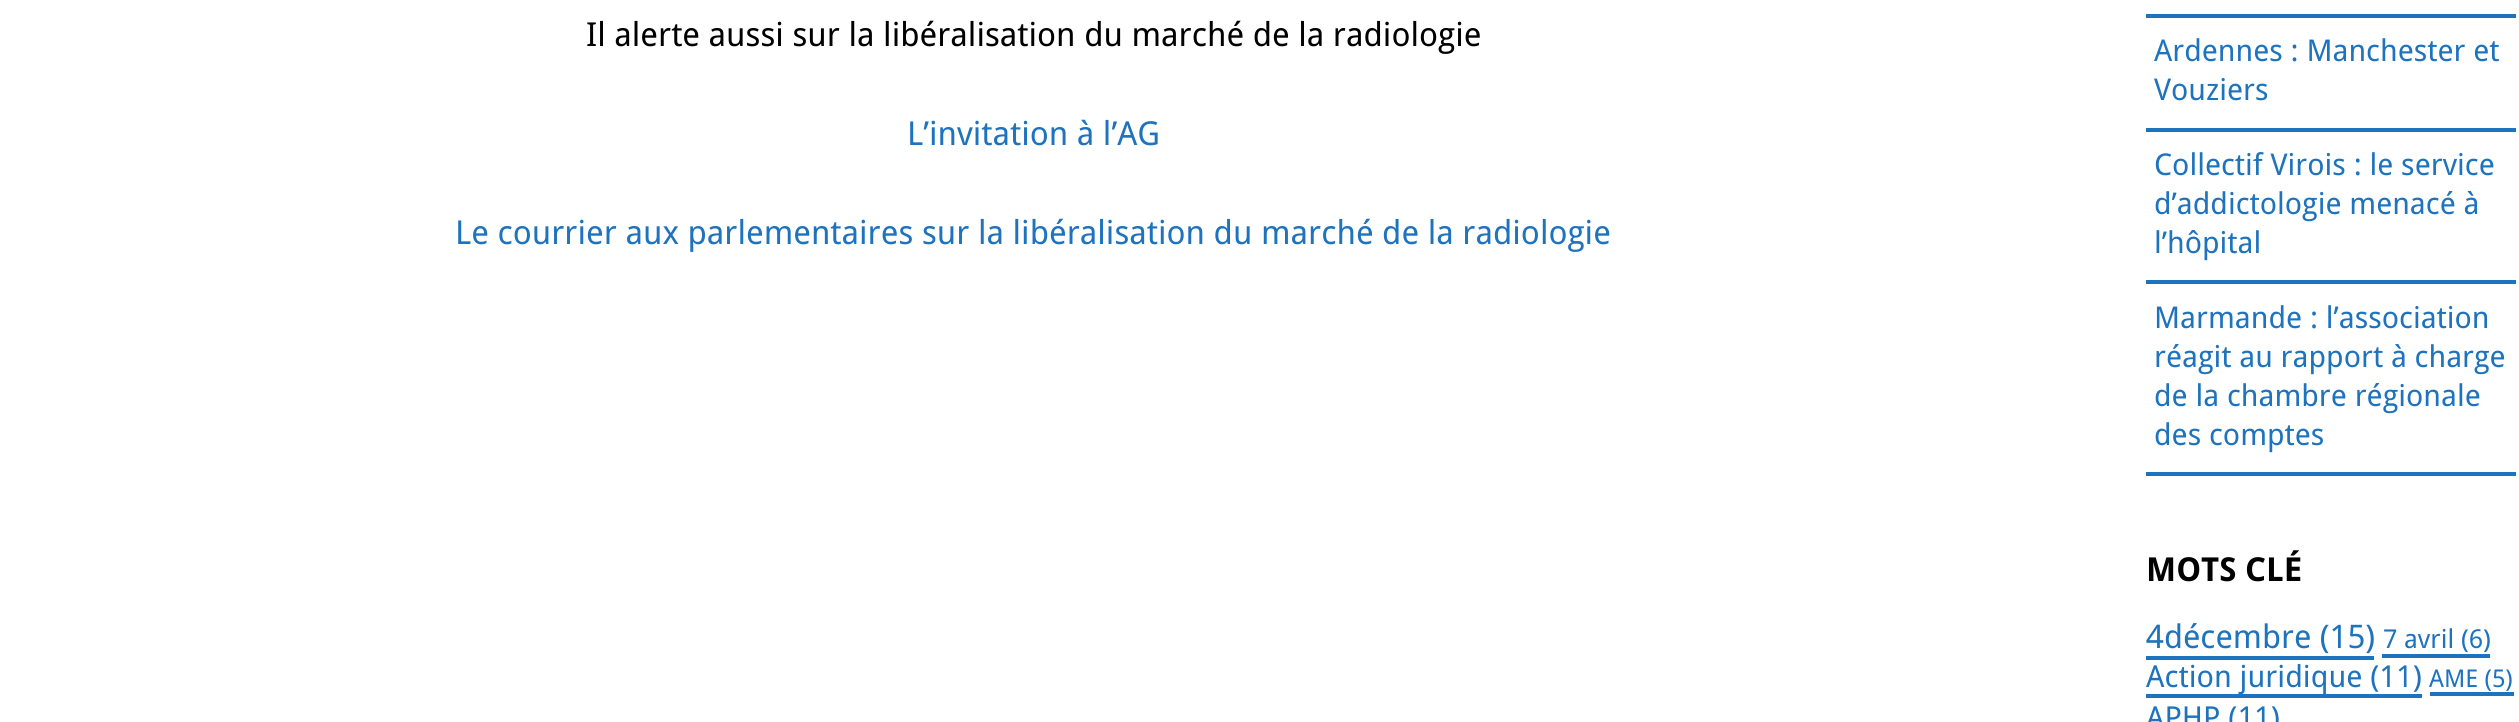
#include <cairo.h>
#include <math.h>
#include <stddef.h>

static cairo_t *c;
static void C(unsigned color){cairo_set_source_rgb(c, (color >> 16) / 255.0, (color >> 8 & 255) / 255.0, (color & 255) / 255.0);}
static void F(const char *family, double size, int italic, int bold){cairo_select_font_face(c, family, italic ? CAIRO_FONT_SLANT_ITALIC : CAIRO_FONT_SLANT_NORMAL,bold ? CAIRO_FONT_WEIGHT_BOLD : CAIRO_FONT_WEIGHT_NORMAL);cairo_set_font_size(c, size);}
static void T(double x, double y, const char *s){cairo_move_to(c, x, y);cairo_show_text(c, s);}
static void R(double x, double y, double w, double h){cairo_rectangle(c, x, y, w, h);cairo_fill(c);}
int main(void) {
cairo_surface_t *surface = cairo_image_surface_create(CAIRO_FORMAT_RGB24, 2519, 722);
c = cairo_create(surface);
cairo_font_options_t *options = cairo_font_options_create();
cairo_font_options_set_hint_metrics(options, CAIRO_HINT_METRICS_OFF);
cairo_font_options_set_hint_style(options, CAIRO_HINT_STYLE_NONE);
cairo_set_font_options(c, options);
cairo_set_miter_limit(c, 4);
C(0xffffff);
cairo_paint(c);
F("Droid Sans",33,0,0);
C(0x000000);
T(586,46,"Il alerte aussi sur la libéralisation du marché de la radiologie");
C(0x1e73be);
T(907,145,"L’invitation à l’AG");
T(455,244,"Le courrier aux parlementaires sur la libéralisation du marché de la radiologie");
R(2146,14,370,4);
R(2146,128,370,4);
F("Droid Sans",30,0,0);
T(2154,61,"Ardennes : Manchester et");
T(2154,100,"Vouziers");
R(2146,280,370,4);
T(2154,175,"Collectif Virois : le service");
T(2154,214,"d’addictologie menacé à");
T(2154,253,"l’hôpital");
R(2146,472,370,4);
T(2154,328,"Marmande : l’association");
T(2154,367,"réagit au rapport à charge");
T(2154,406,"de la chambre régionale");
T(2154,445,"des comptes");
F("Droid Sans",33,0,1);
C(0x000000);
T(2146,581,"MOTS CLÉ");
F("Droid Sans",32.5,0,0);
C(0x1e73be);
T(2146,648,"4décembre (15)");
R(2146,656,228,4);
F("Droid Sans",26,0,0);
T(2383,648,"7 avril (6)");
R(2382,654,108,4);
R(2146,694,276,4);
F("Droid Sans",30.25,0,0);
T(2146,687,"Action juridique (11)");
F("Droid Sans",24.5,0,0);
T(2429,687,"AME (5)");
R(2430,692,84,4);
F("Droid Sans",30.25,0,0);
T(2146,728,"APHP (11)");
cairo_surface_write_to_png(surface, "o.png");
cairo_font_options_destroy(options);
cairo_destroy(c);
cairo_surface_destroy(surface);
return 0;
}
